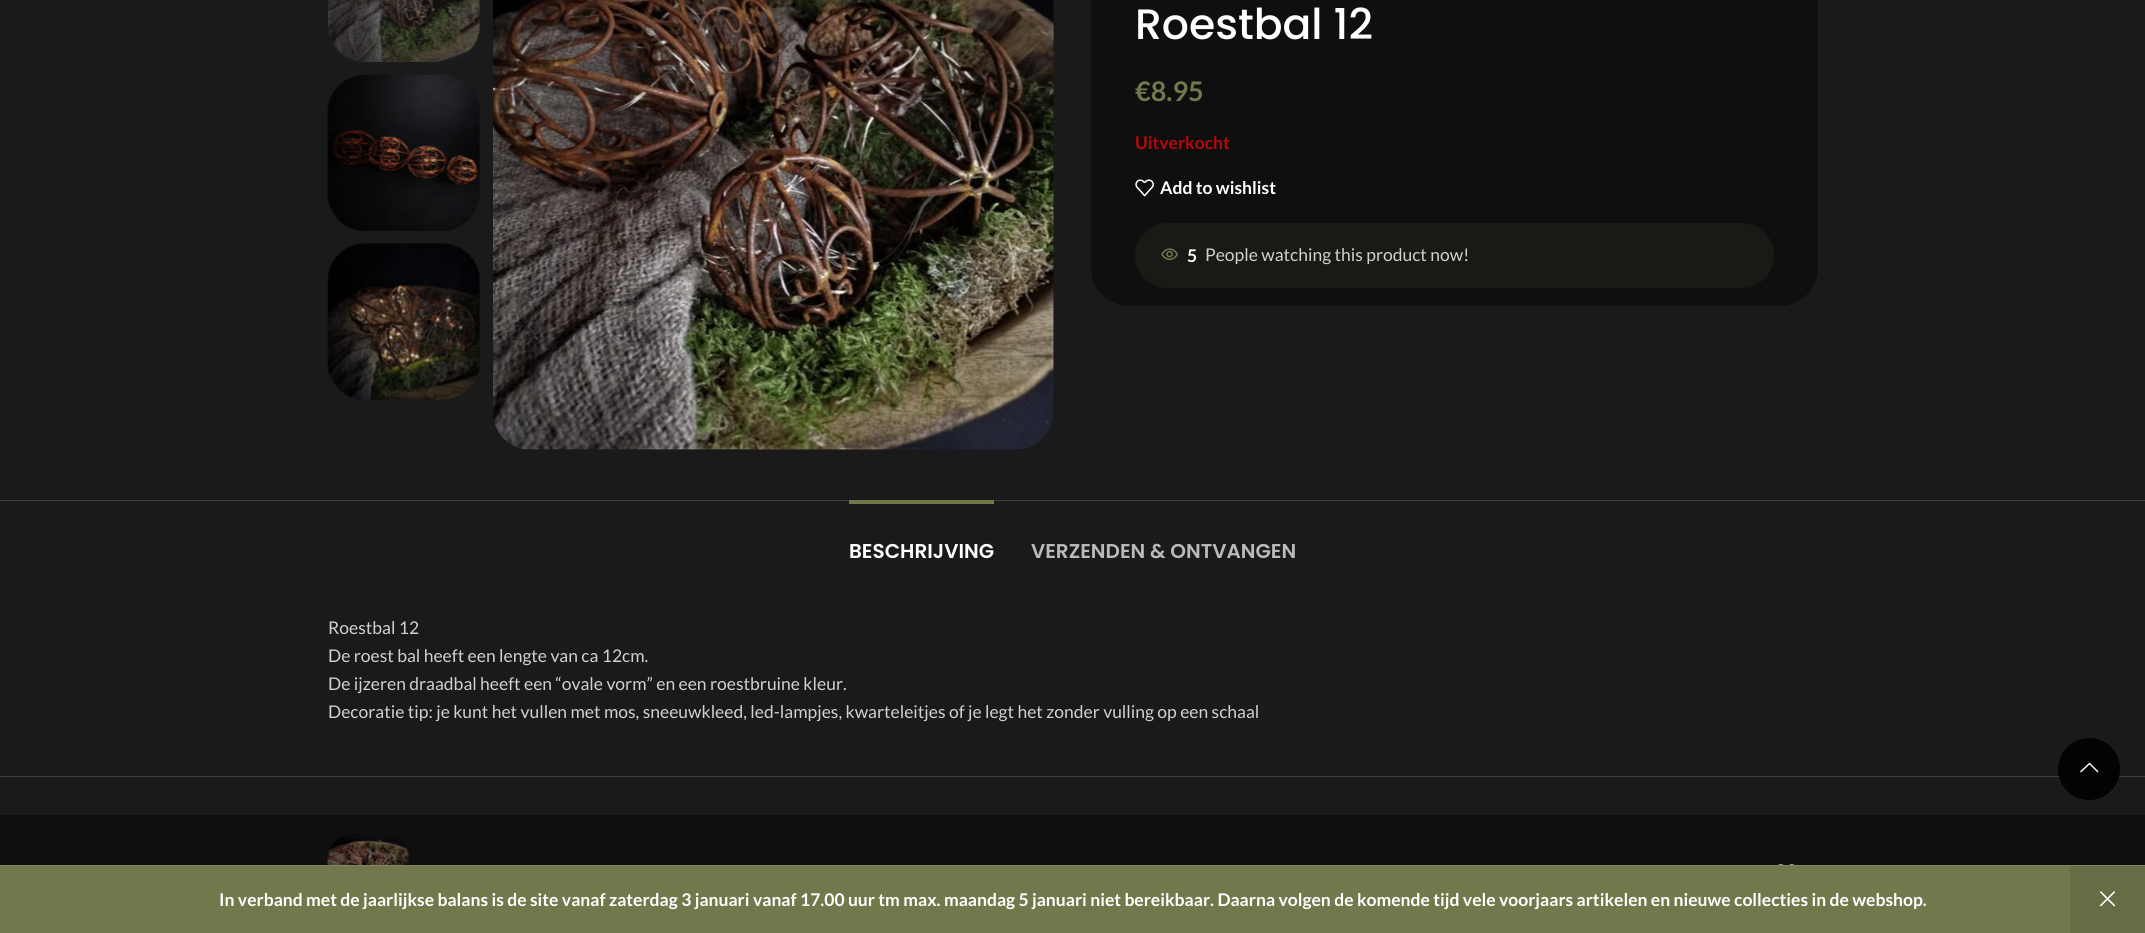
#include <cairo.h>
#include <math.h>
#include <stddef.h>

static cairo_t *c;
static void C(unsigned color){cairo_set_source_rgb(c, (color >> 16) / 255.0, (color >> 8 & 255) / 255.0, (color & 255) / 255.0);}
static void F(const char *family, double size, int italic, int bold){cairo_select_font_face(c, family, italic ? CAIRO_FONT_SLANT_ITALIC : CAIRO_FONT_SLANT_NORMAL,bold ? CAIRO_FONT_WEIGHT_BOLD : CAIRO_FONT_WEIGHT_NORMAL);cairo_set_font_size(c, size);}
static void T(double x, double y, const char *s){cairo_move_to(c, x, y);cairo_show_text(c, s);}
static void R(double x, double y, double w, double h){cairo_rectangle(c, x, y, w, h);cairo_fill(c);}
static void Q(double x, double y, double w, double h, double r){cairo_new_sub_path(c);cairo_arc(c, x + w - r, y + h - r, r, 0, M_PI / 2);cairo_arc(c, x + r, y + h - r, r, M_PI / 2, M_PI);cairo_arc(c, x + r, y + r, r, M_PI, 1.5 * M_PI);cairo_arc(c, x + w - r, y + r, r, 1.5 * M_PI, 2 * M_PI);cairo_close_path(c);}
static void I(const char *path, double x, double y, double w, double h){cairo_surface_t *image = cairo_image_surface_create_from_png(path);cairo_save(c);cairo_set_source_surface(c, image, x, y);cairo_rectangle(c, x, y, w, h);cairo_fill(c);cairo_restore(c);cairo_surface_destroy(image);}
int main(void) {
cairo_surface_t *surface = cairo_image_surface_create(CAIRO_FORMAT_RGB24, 2145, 933);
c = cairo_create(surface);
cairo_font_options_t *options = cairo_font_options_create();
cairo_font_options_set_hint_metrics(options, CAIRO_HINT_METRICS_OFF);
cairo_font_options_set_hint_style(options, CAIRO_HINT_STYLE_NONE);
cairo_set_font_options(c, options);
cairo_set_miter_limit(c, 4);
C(0x1a1a1a);
cairo_paint(c);
I("1.png",328,0,152,62);
I("2.png",327,74,153,157);
I("3.png",327,243,153,157);
I("4.png",493,0,561,450);
C(0x0f0f0f);
Q(1091,-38,727,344,38);
cairo_fill(c);
F("Poppins Medium",42.5,0,0);
C(0xffffff);
T(1135,39,"Roestbal 12");
F("Lato",27,0,1);
C(0x73784c);
T(1135,101,"€8.95");
F("Lato",17.5,0,1);
C(0xb50808);
T(1135,149,"Uitverkocht");
I("5.png",1135,179,19,18);
C(0xffffff);
T(1160,194,"Add to wishlist");
I("6.png",1161,248,17,13);
cairo_set_source_rgba(c,0.451,0.471,0.298,0.1);
Q(1135,223,639,65,32.5);
cairo_fill(c);
C(0xffffff);
T(1187,262,"5");
F("Lato",17.5,0,0);
C(0xd1d1d1);
T(1205,261,"People watching this product now!");
C(0x3c3c3c);
R(0,500,2145,1);
R(0,776,2145,1);
C(0x73784c);
R(849,500,145,4);
F("Poppins SemiBold",20,0,0);
C(0xffffff);
T(849,558,"BESCHRIJVING");
C(0xbababa);
T(1031,558,"VERZENDEN & ONTVANGEN");
F("Lato",17.5,0,0);
C(0xd1d1d1);
T(328,634,"Roestbal 12");
T(328,662,"De roest bal heeft een lengte van ca 12cm.");
T(328,690,"De ijzeren draadbal heeft een “ovale vorm” en een roestbruine kleur.");
T(328,718,"Decoratie tip: je kunt het vullen met mos, sneeuwkleed, led-lampjes, kwarteleitjes of je legt het zonder vulling op een schaal");
cairo_set_source_rgba(c,0,0,0,0.9);
cairo_new_path(c);
cairo_arc(c,2089,769,31,0,2 * M_PI);
cairo_fill(c);
C(0xffffff);
cairo_new_path(c);
cairo_move_to(c,2097.5,772.5);
cairo_line_to(c,2098.5,771.5);
cairo_line_to(c,2089.5,762.5);
cairo_line_to(c,2080,771.5);
cairo_line_to(c,2081,772.5);
cairo_line_to(c,2089.5,764.5);
cairo_close_path(c);
cairo_fill(c);
C(0x0f0f0f);
R(0,815,2145,50);
I("7.png",327,834,82,31);
I("8.png",1778,864,17,1);
C(0x73784c);
R(0,866,2070,67);
C(0x81865e);
R(0,865,2145,1);
F("Lato",17.5,0,1);
C(0xffffff);
T(219,906,"In verband met de jaarlijkse balans is de site vanaf zaterdag 3 januari vanaf 17.00 uur tm max. maandag 5 januari niet bereikbaar. Daarna volgen de komende tijd vele voorjaars artikelen en nieuwe collecties in de webshop.");
C(0x686c44);
R(2070,866,75,67);
I("9.png",2099,891,17,16);
cairo_surface_write_to_png(surface, "o.png");
cairo_font_options_destroy(options);
cairo_destroy(c);
cairo_surface_destroy(surface);
return 0;
}
